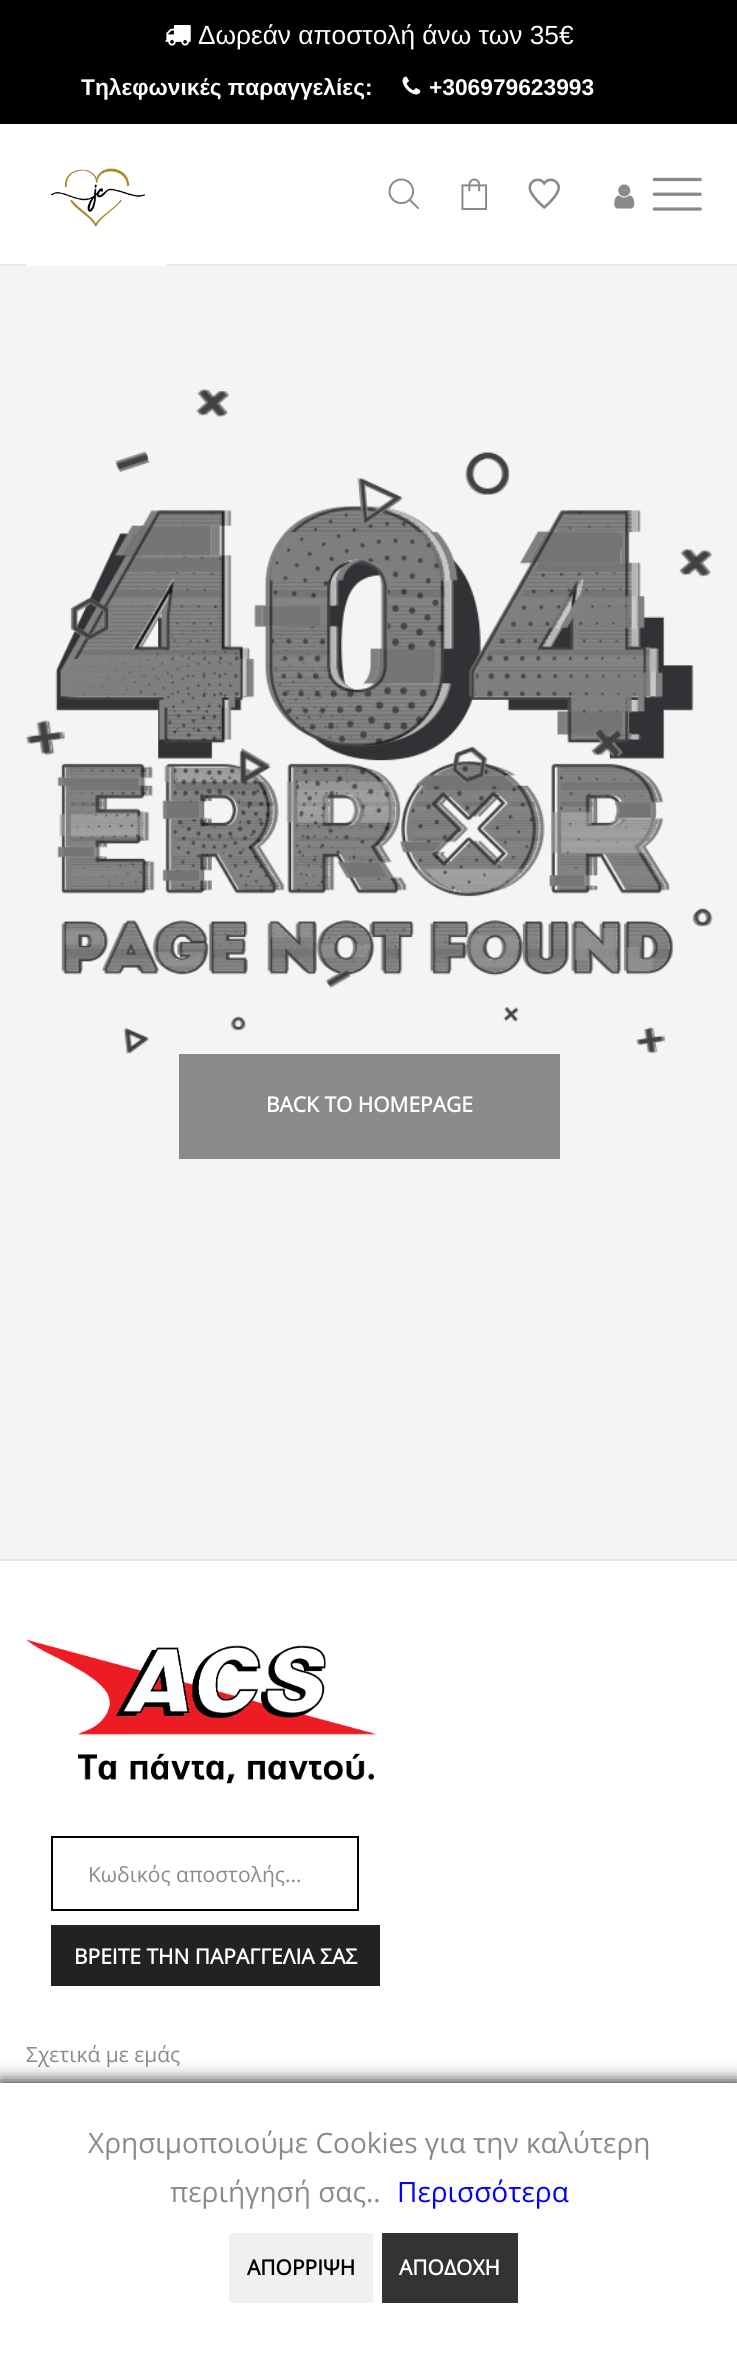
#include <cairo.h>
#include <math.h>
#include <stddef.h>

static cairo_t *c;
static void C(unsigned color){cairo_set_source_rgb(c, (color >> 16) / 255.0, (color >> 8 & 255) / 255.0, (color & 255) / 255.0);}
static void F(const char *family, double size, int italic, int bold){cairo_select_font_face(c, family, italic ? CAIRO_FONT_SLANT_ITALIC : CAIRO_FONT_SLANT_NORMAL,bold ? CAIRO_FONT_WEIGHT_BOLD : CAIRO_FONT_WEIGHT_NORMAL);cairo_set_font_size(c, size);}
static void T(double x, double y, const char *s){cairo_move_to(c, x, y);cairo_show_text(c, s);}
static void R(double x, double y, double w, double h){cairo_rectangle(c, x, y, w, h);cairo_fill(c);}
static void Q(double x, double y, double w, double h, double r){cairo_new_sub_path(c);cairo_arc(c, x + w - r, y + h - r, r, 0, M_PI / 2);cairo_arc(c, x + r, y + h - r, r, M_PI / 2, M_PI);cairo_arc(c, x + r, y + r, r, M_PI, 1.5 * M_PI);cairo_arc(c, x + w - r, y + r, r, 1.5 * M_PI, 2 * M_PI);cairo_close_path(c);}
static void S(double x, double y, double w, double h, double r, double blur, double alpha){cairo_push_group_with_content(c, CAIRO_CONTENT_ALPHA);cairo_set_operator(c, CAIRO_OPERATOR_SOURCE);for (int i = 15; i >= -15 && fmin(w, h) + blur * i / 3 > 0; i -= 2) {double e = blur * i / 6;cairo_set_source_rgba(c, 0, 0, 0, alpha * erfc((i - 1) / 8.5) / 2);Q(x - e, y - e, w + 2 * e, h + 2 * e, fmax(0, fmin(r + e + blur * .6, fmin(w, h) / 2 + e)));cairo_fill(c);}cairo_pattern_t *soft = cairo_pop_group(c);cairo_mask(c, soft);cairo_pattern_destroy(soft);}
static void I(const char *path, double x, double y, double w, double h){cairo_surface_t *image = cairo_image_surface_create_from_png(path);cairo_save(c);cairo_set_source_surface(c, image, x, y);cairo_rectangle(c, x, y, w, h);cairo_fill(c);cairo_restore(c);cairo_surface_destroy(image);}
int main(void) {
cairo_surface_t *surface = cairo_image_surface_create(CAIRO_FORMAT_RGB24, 737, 2355);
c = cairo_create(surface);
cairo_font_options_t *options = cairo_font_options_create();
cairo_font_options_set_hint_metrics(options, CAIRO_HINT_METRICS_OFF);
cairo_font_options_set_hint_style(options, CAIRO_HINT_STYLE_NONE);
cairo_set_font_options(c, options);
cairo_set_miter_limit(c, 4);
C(0xffffff);
cairo_paint(c);
C(0x000000);
R(0,0,737,124);
I("1.png",165,25,26,21);
F("Liberation Sans",26.25,0,0);
C(0xffffff);
T(198,44,"Δωρεάν αποστολή άνω των 35€");
F("Liberation Sans",22.75,0,1);
T(81,95,"Τηλεφωνικές παραγγελίες:");
I("2.png",402,76,19,19);
T(429,95,"+306979623993");
C(0xe8e8e8);
R(0,264,737,2);
I("3.png",26,168,141,98);
I("4.png",388,178,31,31);
I("5.png",461,178,27,32);
I("6.png",528,178,32,31);
I("7.png",614,184,21,25);
I("8.png",652,177,50,34);
C(0xf4f4f4);
R(0,266,737,1293);
I("9.png",26,388,687,666);
C(0x8a8a8a);
R(179,1054,381,105);
F("Open Sans",21,0,1);
C(0xffffff);
T(266,1112,"BACK TO HOMEPAGE");
C(0xe5e5e5);
R(0,1559,737,2);
I("10.png",26,1639,351,145);
cairo_rectangle(c,52,1837,306,73);
C(0x000000);
cairo_stroke(c);
F("Open Sans",21,0,0);
C(0x8a8a8a);
T(88,1882,"Κωδικός αποστολής...");
C(0x222222);
R(51,1925,329,61);
F("Open Sans",21,0,1);
C(0xffffff);
T(74,1964,"ΒΡΕΙΤΕ ΤΗΝ ΠΑΡΑΓΓΕΛΙΑ ΣΑΣ");
F("Open Sans",21,0,0);
C(0x8a8a8a);
T(26,2062,"Σχετικά με εμάς");
C(0x000000);
S(0,2083,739,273,0,9,1);
C(0xffffff);
R(0,2083,737,272);
F("Open Sans",28,0,0);
C(0x8a8a8a);
T(88,2153,"Χρησιμοποιούμε Cookies για την καλύτερη");
T(170,2202,"περιήγησή σας..");
C(0x0000ff);
T(397,2202,"Περισσότερα");
C(0xf0f0f1);
R(229,2233,144,70);
F("Open Sans",21,0,1);
C(0x000000);
T(247,2275,"ΑΠΟΡΡΙΨΗ");
C(0x333333);
R(382,2233,136,70);
C(0xffffff);
T(399,2275,"ΑΠΟΔΟΧΗ");
cairo_surface_write_to_png(surface, "o.png");
cairo_font_options_destroy(options);
cairo_destroy(c);
cairo_surface_destroy(surface);
return 0;
}
